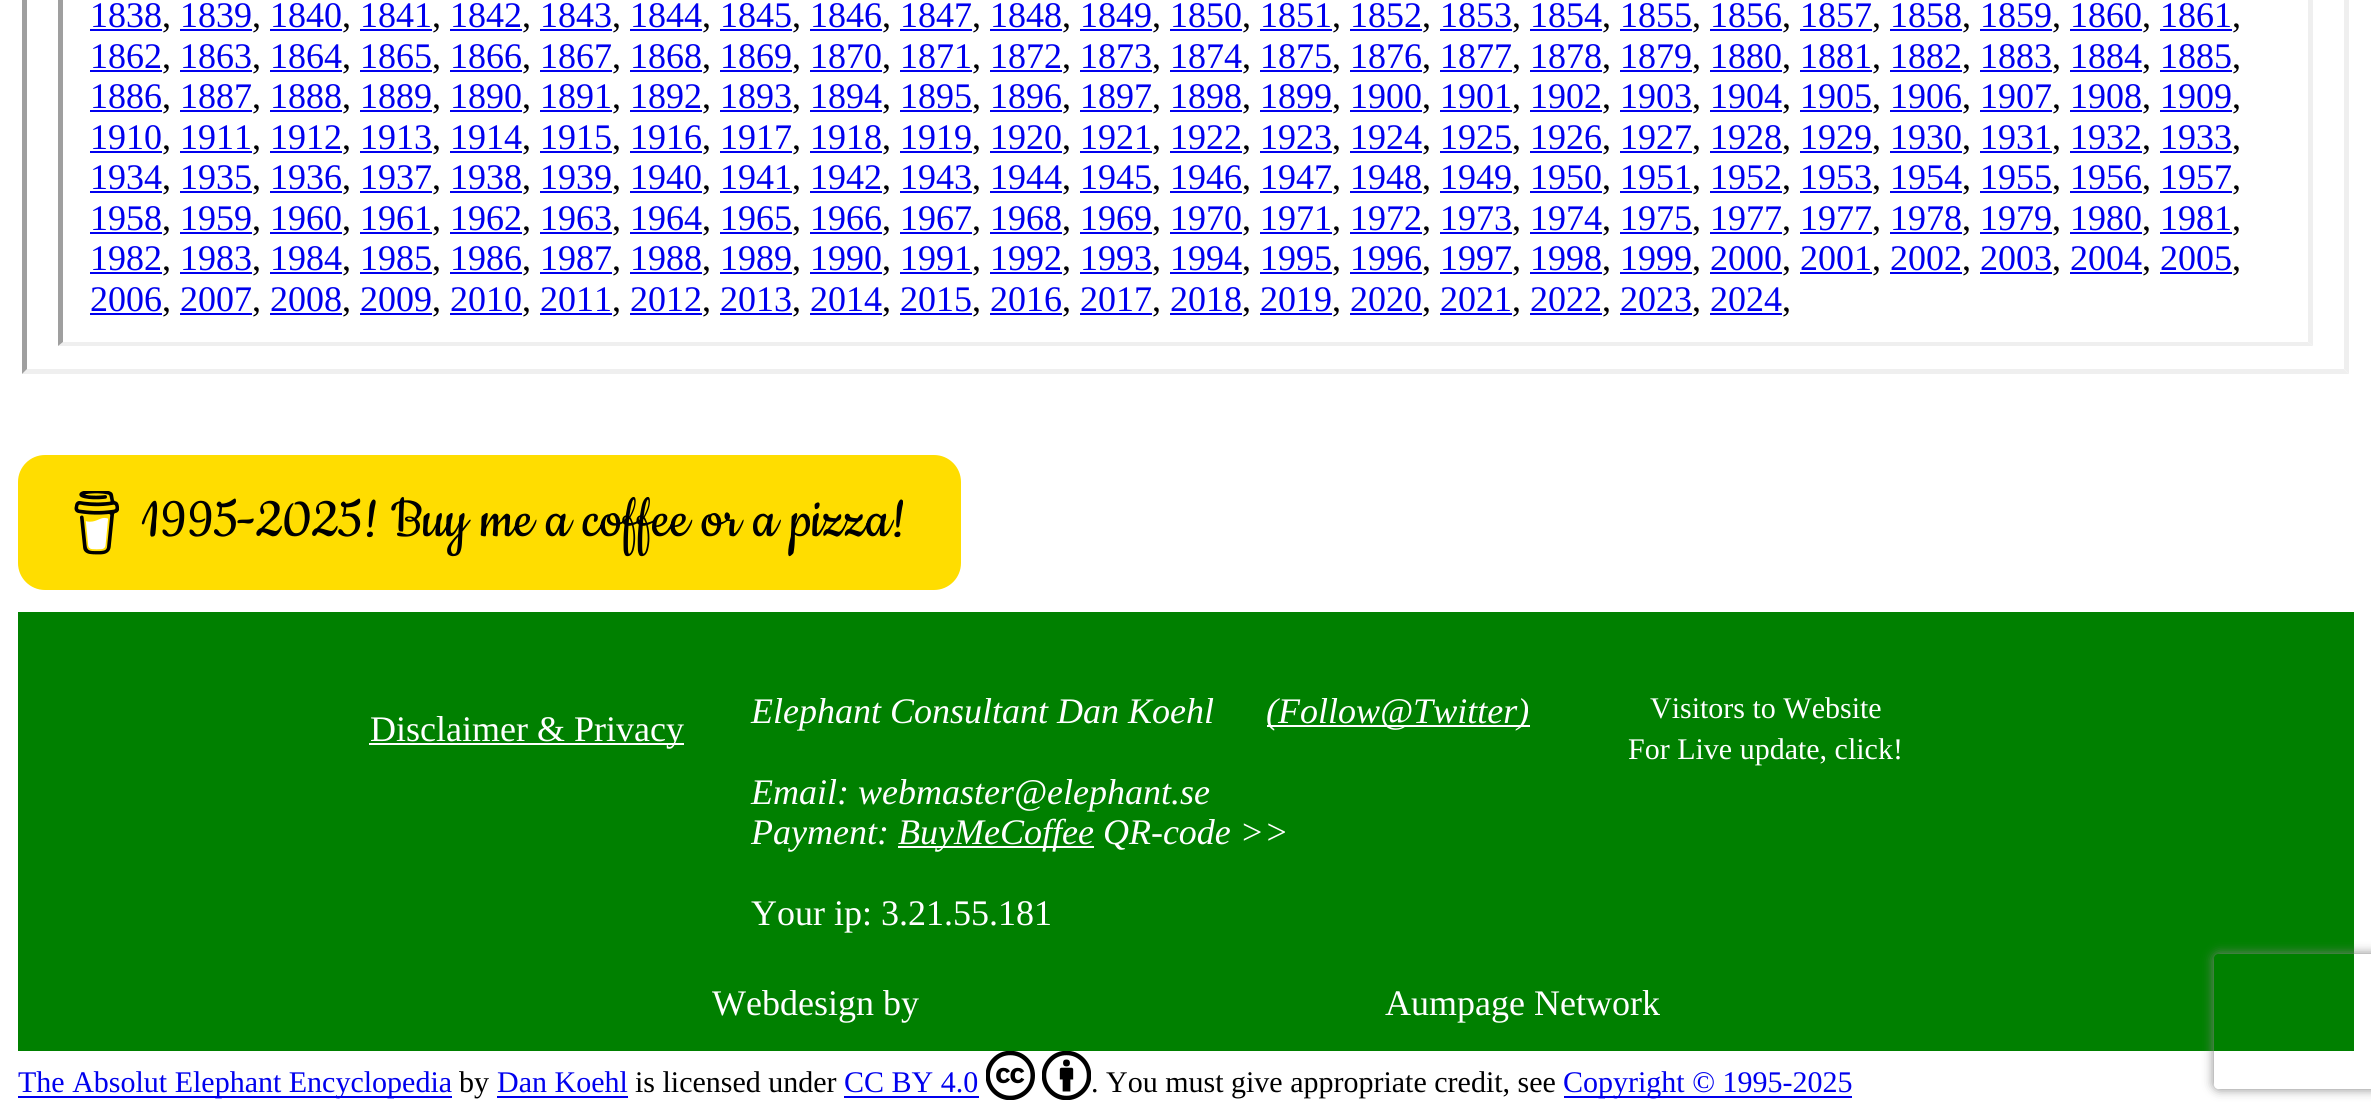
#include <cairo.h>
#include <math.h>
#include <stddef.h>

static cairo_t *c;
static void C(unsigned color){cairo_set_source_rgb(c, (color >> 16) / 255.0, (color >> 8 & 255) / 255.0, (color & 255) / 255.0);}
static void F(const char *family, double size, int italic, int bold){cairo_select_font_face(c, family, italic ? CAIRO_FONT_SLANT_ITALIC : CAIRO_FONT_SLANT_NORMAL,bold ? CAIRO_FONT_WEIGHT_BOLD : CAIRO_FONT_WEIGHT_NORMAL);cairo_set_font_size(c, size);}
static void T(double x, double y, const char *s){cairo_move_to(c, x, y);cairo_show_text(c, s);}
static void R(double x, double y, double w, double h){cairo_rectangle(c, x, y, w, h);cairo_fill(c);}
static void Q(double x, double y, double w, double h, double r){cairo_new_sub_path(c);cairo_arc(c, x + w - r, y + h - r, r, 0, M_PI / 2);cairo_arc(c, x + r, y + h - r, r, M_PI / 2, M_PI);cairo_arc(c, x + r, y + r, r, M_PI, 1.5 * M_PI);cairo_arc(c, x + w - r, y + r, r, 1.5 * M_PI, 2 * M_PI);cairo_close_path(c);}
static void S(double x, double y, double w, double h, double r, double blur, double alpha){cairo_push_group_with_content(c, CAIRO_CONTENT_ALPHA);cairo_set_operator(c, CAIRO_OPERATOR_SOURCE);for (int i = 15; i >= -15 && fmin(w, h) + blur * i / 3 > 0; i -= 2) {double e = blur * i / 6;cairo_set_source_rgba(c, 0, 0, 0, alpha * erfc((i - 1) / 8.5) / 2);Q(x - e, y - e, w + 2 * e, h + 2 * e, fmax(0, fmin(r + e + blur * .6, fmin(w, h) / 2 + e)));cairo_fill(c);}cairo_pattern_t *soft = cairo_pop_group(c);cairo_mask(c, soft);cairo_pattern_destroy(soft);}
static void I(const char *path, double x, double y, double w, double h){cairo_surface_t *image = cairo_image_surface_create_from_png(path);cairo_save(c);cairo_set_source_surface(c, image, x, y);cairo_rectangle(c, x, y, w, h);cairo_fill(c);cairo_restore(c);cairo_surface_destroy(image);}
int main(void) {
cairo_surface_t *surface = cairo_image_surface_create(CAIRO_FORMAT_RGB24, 2371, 1119);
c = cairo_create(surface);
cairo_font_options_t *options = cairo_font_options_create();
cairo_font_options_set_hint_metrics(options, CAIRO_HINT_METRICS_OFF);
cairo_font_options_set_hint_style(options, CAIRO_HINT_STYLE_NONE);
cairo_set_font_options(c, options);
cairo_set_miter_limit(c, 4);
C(0xffffff);
cairo_paint(c);
C(0xefefef);
cairo_new_path(c);
cairo_move_to(c,2349,-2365);
cairo_line_to(c,2349,374);
cairo_line_to(c,2344,369);
cairo_line_to(c,2344,-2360);
cairo_close_path(c);
cairo_fill(c);
cairo_new_path(c);
cairo_move_to(c,2349,374);
cairo_line_to(c,22,374);
cairo_line_to(c,27,369);
cairo_line_to(c,2344,369);
cairo_close_path(c);
cairo_fill(c);
C(0x9f9f9f);
cairo_new_path(c);
cairo_move_to(c,22,374);
cairo_line_to(c,22,-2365);
cairo_line_to(c,27,-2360);
cairo_line_to(c,27,369);
cairo_close_path(c);
cairo_fill(c);
C(0xefefef);
cairo_new_path(c);
cairo_move_to(c,2313,-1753);
cairo_line_to(c,2313,346);
cairo_line_to(c,2308,342);
cairo_line_to(c,2308,-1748);
cairo_close_path(c);
cairo_fill(c);
cairo_new_path(c);
cairo_move_to(c,2313,346);
cairo_line_to(c,58,346);
cairo_line_to(c,63,342);
cairo_line_to(c,2308,342);
cairo_close_path(c);
cairo_fill(c);
C(0x9f9f9f);
cairo_new_path(c);
cairo_move_to(c,58,346);
cairo_line_to(c,58,-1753);
cairo_line_to(c,63,-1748);
cairo_line_to(c,63,342);
cairo_close_path(c);
cairo_fill(c);
F("Liberation Serif",36,0,0);
C(0x0000ee);
T(90,27,"1838");
R(90,29,72,2);
C(0x000000);
T(162,27,",");
C(0x0000ee);
T(180,27,"1839");
R(180,29,72,2);
C(0x000000);
T(252,27,",");
C(0x0000ee);
T(270,27,"1840");
R(270,29,72,2);
C(0x000000);
T(342,27,",");
C(0x0000ee);
T(360,27,"1841");
R(360,29,72,2);
C(0x000000);
T(432,27,",");
C(0x0000ee);
T(450,27,"1842");
R(450,29,72,2);
C(0x000000);
T(522,27,",");
C(0x0000ee);
T(540,27,"1843");
R(540,29,72,2);
C(0x000000);
T(612,27,",");
C(0x0000ee);
T(630,27,"1844");
R(630,29,72,2);
C(0x000000);
T(702,27,",");
C(0x0000ee);
T(720,27,"1845");
R(720,29,72,2);
C(0x000000);
T(792,27,",");
C(0x0000ee);
T(810,27,"1846");
R(810,29,72,2);
C(0x000000);
T(882,27,",");
C(0x0000ee);
T(900,27,"1847");
R(900,29,72,2);
C(0x000000);
T(972,27,",");
C(0x0000ee);
T(990,27,"1848");
R(990,29,72,2);
C(0x000000);
T(1062,27,",");
C(0x0000ee);
T(1080,27,"1849");
R(1080,29,72,2);
C(0x000000);
T(1152,27,",");
C(0x0000ee);
T(1170,27,"1850");
R(1170,29,72,2);
C(0x000000);
T(1242,27,",");
C(0x0000ee);
T(1260,27,"1851");
R(1260,29,72,2);
C(0x000000);
T(1332,27,",");
C(0x0000ee);
T(1350,27,"1852");
R(1350,29,72,2);
C(0x000000);
T(1422,27,",");
C(0x0000ee);
T(1440,27,"1853");
R(1440,29,72,2);
C(0x000000);
T(1512,27,",");
C(0x0000ee);
T(1530,27,"1854");
R(1530,29,72,2);
C(0x000000);
T(1602,27,",");
C(0x0000ee);
T(1620,27,"1855");
R(1620,29,72,2);
C(0x000000);
T(1692,27,",");
C(0x0000ee);
T(1710,27,"1856");
R(1710,29,72,2);
C(0x000000);
T(1782,27,",");
C(0x0000ee);
T(1800,27,"1857");
R(1800,29,72,2);
C(0x000000);
T(1872,27,",");
C(0x0000ee);
T(1890,27,"1858");
R(1890,29,72,2);
C(0x000000);
T(1962,27,",");
C(0x0000ee);
T(1980,27,"1859");
R(1980,29,72,2);
C(0x000000);
T(2052,27,",");
C(0x0000ee);
T(2070,27,"1860");
R(2070,29,72,2);
C(0x000000);
T(2142,27,",");
C(0x0000ee);
T(2160,27,"1861");
R(2160,29,72,2);
C(0x000000);
T(2232,27,",");
C(0x0000ee);
T(90,68,"1862");
R(90,70,72,2);
C(0x000000);
T(162,68,",");
C(0x0000ee);
T(180,68,"1863");
R(180,70,72,2);
C(0x000000);
T(252,68,",");
C(0x0000ee);
T(270,68,"1864");
R(270,70,72,2);
C(0x000000);
T(342,68,",");
C(0x0000ee);
T(360,68,"1865");
R(360,70,72,2);
C(0x000000);
T(432,68,",");
C(0x0000ee);
T(450,68,"1866");
R(450,70,72,2);
C(0x000000);
T(522,68,",");
C(0x0000ee);
T(540,68,"1867");
R(540,70,72,2);
C(0x000000);
T(612,68,",");
C(0x0000ee);
T(630,68,"1868");
R(630,70,72,2);
C(0x000000);
T(702,68,",");
C(0x0000ee);
T(720,68,"1869");
R(720,70,72,2);
C(0x000000);
T(792,68,",");
C(0x0000ee);
T(810,68,"1870");
R(810,70,72,2);
C(0x000000);
T(882,68,",");
C(0x0000ee);
T(900,68,"1871");
R(900,70,72,2);
C(0x000000);
T(972,68,",");
C(0x0000ee);
T(990,68,"1872");
R(990,70,72,2);
C(0x000000);
T(1062,68,",");
C(0x0000ee);
T(1080,68,"1873");
R(1080,70,72,2);
C(0x000000);
T(1152,68,",");
C(0x0000ee);
T(1170,68,"1874");
R(1170,70,72,2);
C(0x000000);
T(1242,68,",");
C(0x0000ee);
T(1260,68,"1875");
R(1260,70,72,2);
C(0x000000);
T(1332,68,",");
C(0x0000ee);
T(1350,68,"1876");
R(1350,70,72,2);
C(0x000000);
T(1422,68,",");
C(0x0000ee);
T(1440,68,"1877");
R(1440,70,72,2);
C(0x000000);
T(1512,68,",");
C(0x0000ee);
T(1530,68,"1878");
R(1530,70,72,2);
C(0x000000);
T(1602,68,",");
C(0x0000ee);
T(1620,68,"1879");
R(1620,70,72,2);
C(0x000000);
T(1692,68,",");
C(0x0000ee);
T(1710,68,"1880");
R(1710,70,72,2);
C(0x000000);
T(1782,68,",");
C(0x0000ee);
T(1800,68,"1881");
R(1800,70,72,2);
C(0x000000);
T(1872,68,",");
C(0x0000ee);
T(1890,68,"1882");
R(1890,70,72,2);
C(0x000000);
T(1962,68,",");
C(0x0000ee);
T(1980,68,"1883");
R(1980,70,72,2);
C(0x000000);
T(2052,68,",");
C(0x0000ee);
T(2070,68,"1884");
R(2070,70,72,2);
C(0x000000);
T(2142,68,",");
C(0x0000ee);
T(2160,68,"1885");
R(2160,70,72,2);
C(0x000000);
T(2232,68,",");
C(0x0000ee);
T(90,108,"1886");
R(90,110,72,2);
C(0x000000);
T(162,108,",");
C(0x0000ee);
T(180,108,"1887");
R(180,110,72,2);
C(0x000000);
T(252,108,",");
C(0x0000ee);
T(270,108,"1888");
R(270,110,72,2);
C(0x000000);
T(342,108,",");
C(0x0000ee);
T(360,108,"1889");
R(360,110,72,2);
C(0x000000);
T(432,108,",");
C(0x0000ee);
T(450,108,"1890");
R(450,110,72,2);
C(0x000000);
T(522,108,",");
C(0x0000ee);
T(540,108,"1891");
R(540,110,72,2);
C(0x000000);
T(612,108,",");
C(0x0000ee);
T(630,108,"1892");
R(630,110,72,2);
C(0x000000);
T(702,108,",");
C(0x0000ee);
T(720,108,"1893");
R(720,110,72,2);
C(0x000000);
T(792,108,",");
C(0x0000ee);
T(810,108,"1894");
R(810,110,72,2);
C(0x000000);
T(882,108,",");
C(0x0000ee);
T(900,108,"1895");
R(900,110,72,2);
C(0x000000);
T(972,108,",");
C(0x0000ee);
T(990,108,"1896");
R(990,110,72,2);
C(0x000000);
T(1062,108,",");
C(0x0000ee);
T(1080,108,"1897");
R(1080,110,72,2);
C(0x000000);
T(1152,108,",");
C(0x0000ee);
T(1170,108,"1898");
R(1170,110,72,2);
C(0x000000);
T(1242,108,",");
C(0x0000ee);
T(1260,108,"1899");
R(1260,110,72,2);
C(0x000000);
T(1332,108,",");
C(0x0000ee);
T(1350,108,"1900");
R(1350,110,72,2);
C(0x000000);
T(1422,108,",");
C(0x0000ee);
T(1440,108,"1901");
R(1440,110,72,2);
C(0x000000);
T(1512,108,",");
C(0x0000ee);
T(1530,108,"1902");
R(1530,110,72,2);
C(0x000000);
T(1602,108,",");
C(0x0000ee);
T(1620,108,"1903");
R(1620,110,72,2);
C(0x000000);
T(1692,108,",");
C(0x0000ee);
T(1710,108,"1904");
R(1710,110,72,2);
C(0x000000);
T(1782,108,",");
C(0x0000ee);
T(1800,108,"1905");
R(1800,110,72,2);
C(0x000000);
T(1872,108,",");
C(0x0000ee);
T(1890,108,"1906");
R(1890,110,72,2);
C(0x000000);
T(1962,108,",");
C(0x0000ee);
T(1980,108,"1907");
R(1980,110,72,2);
C(0x000000);
T(2052,108,",");
C(0x0000ee);
T(2070,108,"1908");
R(2070,110,72,2);
C(0x000000);
T(2142,108,",");
C(0x0000ee);
T(2160,108,"1909");
R(2160,110,72,2);
C(0x000000);
T(2232,108,",");
C(0x0000ee);
T(90,149,"1910");
R(90,151,72,2);
C(0x000000);
T(162,149,",");
C(0x0000ee);
T(180,149,"1911");
R(180,151,72,2);
C(0x000000);
T(252,149,",");
C(0x0000ee);
T(270,149,"1912");
R(270,151,72,2);
C(0x000000);
T(342,149,",");
C(0x0000ee);
T(360,149,"1913");
R(360,151,72,2);
C(0x000000);
T(432,149,",");
C(0x0000ee);
T(450,149,"1914");
R(450,151,72,2);
C(0x000000);
T(522,149,",");
C(0x0000ee);
T(540,149,"1915");
R(540,151,72,2);
C(0x000000);
T(612,149,",");
C(0x0000ee);
T(630,149,"1916");
R(630,151,72,2);
C(0x000000);
T(702,149,",");
C(0x0000ee);
T(720,149,"1917");
R(720,151,72,2);
C(0x000000);
T(792,149,",");
C(0x0000ee);
T(810,149,"1918");
R(810,151,72,2);
C(0x000000);
T(882,149,",");
C(0x0000ee);
T(900,149,"1919");
R(900,151,72,2);
C(0x000000);
T(972,149,",");
C(0x0000ee);
T(990,149,"1920");
R(990,151,72,2);
C(0x000000);
T(1062,149,",");
C(0x0000ee);
T(1080,149,"1921");
R(1080,151,72,2);
C(0x000000);
T(1152,149,",");
C(0x0000ee);
T(1170,149,"1922");
R(1170,151,72,2);
C(0x000000);
T(1242,149,",");
C(0x0000ee);
T(1260,149,"1923");
R(1260,151,72,2);
C(0x000000);
T(1332,149,",");
C(0x0000ee);
T(1350,149,"1924");
R(1350,151,72,2);
C(0x000000);
T(1422,149,",");
C(0x0000ee);
T(1440,149,"1925");
R(1440,151,72,2);
C(0x000000);
T(1512,149,",");
C(0x0000ee);
T(1530,149,"1926");
R(1530,151,72,2);
C(0x000000);
T(1602,149,",");
C(0x0000ee);
T(1620,149,"1927");
R(1620,151,72,2);
C(0x000000);
T(1692,149,",");
C(0x0000ee);
T(1710,149,"1928");
R(1710,151,72,2);
C(0x000000);
T(1782,149,",");
C(0x0000ee);
T(1800,149,"1929");
R(1800,151,72,2);
C(0x000000);
T(1872,149,",");
C(0x0000ee);
T(1890,149,"1930");
R(1890,151,72,2);
C(0x000000);
T(1962,149,",");
C(0x0000ee);
T(1980,149,"1931");
R(1980,151,72,2);
C(0x000000);
T(2052,149,",");
C(0x0000ee);
T(2070,149,"1932");
R(2070,151,72,2);
C(0x000000);
T(2142,149,",");
C(0x0000ee);
T(2160,149,"1933");
R(2160,151,72,2);
C(0x000000);
T(2232,149,",");
C(0x0000ee);
T(90,189,"1934");
R(90,191,72,2);
C(0x000000);
T(162,189,",");
C(0x0000ee);
T(180,189,"1935");
R(180,191,72,2);
C(0x000000);
T(252,189,",");
C(0x0000ee);
T(270,189,"1936");
R(270,191,72,2);
C(0x000000);
T(342,189,",");
C(0x0000ee);
T(360,189,"1937");
R(360,191,72,2);
C(0x000000);
T(432,189,",");
C(0x0000ee);
T(450,189,"1938");
R(450,191,72,2);
C(0x000000);
T(522,189,",");
C(0x0000ee);
T(540,189,"1939");
R(540,191,72,2);
C(0x000000);
T(612,189,",");
C(0x0000ee);
T(630,189,"1940");
R(630,191,72,2);
C(0x000000);
T(702,189,",");
C(0x0000ee);
T(720,189,"1941");
R(720,191,72,2);
C(0x000000);
T(792,189,",");
C(0x0000ee);
T(810,189,"1942");
R(810,191,72,2);
C(0x000000);
T(882,189,",");
C(0x0000ee);
T(900,189,"1943");
R(900,191,72,2);
C(0x000000);
T(972,189,",");
C(0x0000ee);
T(990,189,"1944");
R(990,191,72,2);
C(0x000000);
T(1062,189,",");
C(0x0000ee);
T(1080,189,"1945");
R(1080,191,72,2);
C(0x000000);
T(1152,189,",");
C(0x0000ee);
T(1170,189,"1946");
R(1170,191,72,2);
C(0x000000);
T(1242,189,",");
C(0x0000ee);
T(1260,189,"1947");
R(1260,191,72,2);
C(0x000000);
T(1332,189,",");
C(0x0000ee);
T(1350,189,"1948");
R(1350,191,72,2);
C(0x000000);
T(1422,189,",");
C(0x0000ee);
T(1440,189,"1949");
R(1440,191,72,2);
C(0x000000);
T(1512,189,",");
C(0x0000ee);
T(1530,189,"1950");
R(1530,191,72,2);
C(0x000000);
T(1602,189,",");
C(0x0000ee);
T(1620,189,"1951");
R(1620,191,72,2);
C(0x000000);
T(1692,189,",");
C(0x0000ee);
T(1710,189,"1952");
R(1710,191,72,2);
C(0x000000);
T(1782,189,",");
C(0x0000ee);
T(1800,189,"1953");
R(1800,191,72,2);
C(0x000000);
T(1872,189,",");
C(0x0000ee);
T(1890,189,"1954");
R(1890,191,72,2);
C(0x000000);
T(1962,189,",");
C(0x0000ee);
T(1980,189,"1955");
R(1980,191,72,2);
C(0x000000);
T(2052,189,",");
C(0x0000ee);
T(2070,189,"1956");
R(2070,191,72,2);
C(0x000000);
T(2142,189,",");
C(0x0000ee);
T(2160,189,"1957");
R(2160,191,72,2);
C(0x000000);
T(2232,189,",");
C(0x0000ee);
T(90,230,"1958");
R(90,232,72,2);
C(0x000000);
T(162,230,",");
C(0x0000ee);
T(180,230,"1959");
R(180,232,72,2);
C(0x000000);
T(252,230,",");
C(0x0000ee);
T(270,230,"1960");
R(270,232,72,2);
C(0x000000);
T(342,230,",");
C(0x0000ee);
T(360,230,"1961");
R(360,232,72,2);
C(0x000000);
T(432,230,",");
C(0x0000ee);
T(450,230,"1962");
R(450,232,72,2);
C(0x000000);
T(522,230,",");
C(0x0000ee);
T(540,230,"1963");
R(540,232,72,2);
C(0x000000);
T(612,230,",");
C(0x0000ee);
T(630,230,"1964");
R(630,232,72,2);
C(0x000000);
T(702,230,",");
C(0x0000ee);
T(720,230,"1965");
R(720,232,72,2);
C(0x000000);
T(792,230,",");
C(0x0000ee);
T(810,230,"1966");
R(810,232,72,2);
C(0x000000);
T(882,230,",");
C(0x0000ee);
T(900,230,"1967");
R(900,232,72,2);
C(0x000000);
T(972,230,",");
C(0x0000ee);
T(990,230,"1968");
R(990,232,72,2);
C(0x000000);
T(1062,230,",");
C(0x0000ee);
T(1080,230,"1969");
R(1080,232,72,2);
C(0x000000);
T(1152,230,",");
C(0x0000ee);
T(1170,230,"1970");
R(1170,232,72,2);
C(0x000000);
T(1242,230,",");
C(0x0000ee);
T(1260,230,"1971");
R(1260,232,72,2);
C(0x000000);
T(1332,230,",");
C(0x0000ee);
T(1350,230,"1972");
R(1350,232,72,2);
C(0x000000);
T(1422,230,",");
C(0x0000ee);
T(1440,230,"1973");
R(1440,232,72,2);
C(0x000000);
T(1512,230,",");
C(0x0000ee);
T(1530,230,"1974");
R(1530,232,72,2);
C(0x000000);
T(1602,230,",");
C(0x0000ee);
T(1620,230,"1975");
R(1620,232,72,2);
C(0x000000);
T(1692,230,",");
C(0x0000ee);
T(1710,230,"1977");
R(1710,232,72,2);
C(0x000000);
T(1782,230,",");
C(0x0000ee);
T(1800,230,"1977");
R(1800,232,72,2);
C(0x000000);
T(1872,230,",");
C(0x0000ee);
T(1890,230,"1978");
R(1890,232,72,2);
C(0x000000);
T(1962,230,",");
C(0x0000ee);
T(1980,230,"1979");
R(1980,232,72,2);
C(0x000000);
T(2052,230,",");
C(0x0000ee);
T(2070,230,"1980");
R(2070,232,72,2);
C(0x000000);
T(2142,230,",");
C(0x0000ee);
T(2160,230,"1981");
R(2160,232,72,2);
C(0x000000);
T(2232,230,",");
C(0x0000ee);
T(90,270,"1982");
R(90,272,72,2);
C(0x000000);
T(162,270,",");
C(0x0000ee);
T(180,270,"1983");
R(180,272,72,2);
C(0x000000);
T(252,270,",");
C(0x0000ee);
T(270,270,"1984");
R(270,272,72,2);
C(0x000000);
T(342,270,",");
C(0x0000ee);
T(360,270,"1985");
R(360,272,72,2);
C(0x000000);
T(432,270,",");
C(0x0000ee);
T(450,270,"1986");
R(450,272,72,2);
C(0x000000);
T(522,270,",");
C(0x0000ee);
T(540,270,"1987");
R(540,272,72,2);
C(0x000000);
T(612,270,",");
C(0x0000ee);
T(630,270,"1988");
R(630,272,72,2);
C(0x000000);
T(702,270,",");
C(0x0000ee);
T(720,270,"1989");
R(720,272,72,2);
C(0x000000);
T(792,270,",");
C(0x0000ee);
T(810,270,"1990");
R(810,272,72,2);
C(0x000000);
T(882,270,",");
C(0x0000ee);
T(900,270,"1991");
R(900,272,72,2);
C(0x000000);
T(972,270,",");
C(0x0000ee);
T(990,270,"1992");
R(990,272,72,2);
C(0x000000);
T(1062,270,",");
C(0x0000ee);
T(1080,270,"1993");
R(1080,272,72,2);
C(0x000000);
T(1152,270,",");
C(0x0000ee);
T(1170,270,"1994");
R(1170,272,72,2);
C(0x000000);
T(1242,270,",");
C(0x0000ee);
T(1260,270,"1995");
R(1260,272,72,2);
C(0x000000);
T(1332,270,",");
C(0x0000ee);
T(1350,270,"1996");
R(1350,272,72,2);
C(0x000000);
T(1422,270,",");
C(0x0000ee);
T(1440,270,"1997");
R(1440,272,72,2);
C(0x000000);
T(1512,270,",");
C(0x0000ee);
T(1530,270,"1998");
R(1530,272,72,2);
C(0x000000);
T(1602,270,",");
C(0x0000ee);
T(1620,270,"1999");
R(1620,272,72,2);
C(0x000000);
T(1692,270,",");
C(0x0000ee);
T(1710,270,"2000");
R(1710,272,72,2);
C(0x000000);
T(1782,270,",");
C(0x0000ee);
T(1800,270,"2001");
R(1800,272,72,2);
C(0x000000);
T(1872,270,",");
C(0x0000ee);
T(1890,270,"2002");
R(1890,272,72,2);
C(0x000000);
T(1962,270,",");
C(0x0000ee);
T(1980,270,"2003");
R(1980,272,72,2);
C(0x000000);
T(2052,270,",");
C(0x0000ee);
T(2070,270,"2004");
R(2070,272,72,2);
C(0x000000);
T(2142,270,",");
C(0x0000ee);
T(2160,270,"2005");
R(2160,272,72,2);
C(0x000000);
T(2232,270,",");
C(0x0000ee);
T(90,311,"2006");
R(90,313,72,2);
C(0x000000);
T(162,311,",");
C(0x0000ee);
T(180,311,"2007");
R(180,313,72,2);
C(0x000000);
T(252,311,",");
C(0x0000ee);
T(270,311,"2008");
R(270,313,72,2);
C(0x000000);
T(342,311,",");
C(0x0000ee);
T(360,311,"2009");
R(360,313,72,2);
C(0x000000);
T(432,311,",");
C(0x0000ee);
T(450,311,"2010");
R(450,313,72,2);
C(0x000000);
T(522,311,",");
C(0x0000ee);
T(540,311,"2011");
R(540,313,72,2);
C(0x000000);
T(612,311,",");
C(0x0000ee);
T(630,311,"2012");
R(630,313,72,2);
C(0x000000);
T(702,311,",");
C(0x0000ee);
T(720,311,"2013");
R(720,313,72,2);
C(0x000000);
T(792,311,",");
C(0x0000ee);
T(810,311,"2014");
R(810,313,72,2);
C(0x000000);
T(882,311,",");
C(0x0000ee);
T(900,311,"2015");
R(900,313,72,2);
C(0x000000);
T(972,311,",");
C(0x0000ee);
T(990,311,"2016");
R(990,313,72,2);
C(0x000000);
T(1062,311,",");
C(0x0000ee);
T(1080,311,"2017");
R(1080,313,72,2);
C(0x000000);
T(1152,311,",");
C(0x0000ee);
T(1170,311,"2018");
R(1170,313,72,2);
C(0x000000);
T(1242,311,",");
C(0x0000ee);
T(1260,311,"2019");
R(1260,313,72,2);
C(0x000000);
T(1332,311,",");
C(0x0000ee);
T(1350,311,"2020");
R(1350,313,72,2);
C(0x000000);
T(1422,311,",");
C(0x0000ee);
T(1440,311,"2021");
R(1440,313,72,2);
C(0x000000);
T(1512,311,",");
C(0x0000ee);
T(1530,311,"2022");
R(1530,313,72,2);
C(0x000000);
T(1602,311,",");
C(0x0000ee);
T(1620,311,"2023");
R(1620,313,72,2);
C(0x000000);
T(1692,311,",");
C(0x0000ee);
T(1710,311,"2024");
R(1710,313,72,2);
C(0x000000);
T(1782,311,",");
C(0xffdd00);
Q(18,455,943,135,27);
cairo_fill(c);
I("1.png",74,491,45,64);
F("Cookie",63,0,0);
C(0x000000);
T(140,536,"1995-2025! Buy me a coffee or a pizza!");
C(0x008000);
R(18,612,2336,439);
C(0xffffff);
R(369,743,315,2);
F("Liberation Serif",36,0,0);
T(370,741,"Disclaimer & Privacy");
F("Liberation Serif",36,1,0);
T(751,723,"Elephant Consultant Dan Koehl");
R(1267,725,263,2);
T(1266,723,"(Follow@Twitter)");
T(751,804,"Email: webmaster@elephant.se");
T(751,844,"Payment:");
R(898,846,196,2);
T(898,844,"BuyMeCoffee QR-code >>");
F("Liberation Serif",36,0,0);
T(751,925,"Your ip: 3.21.55.181");
F("Liberation Serif",30,0,0);
T(1650,718,"Visitors to Website");
T(1628,759,"For Live update, click!");
F("Liberation Serif",36,0,0);
T(712,1015,"Webdesign by");
T(1385,1015,"Aumpage Network");
cairo_save(c);
cairo_set_fill_rule(c,CAIRO_FILL_RULE_EVEN_ODD);
cairo_new_path(c);
cairo_move_to(c,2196,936);
cairo_line_to(c,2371,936);
cairo_line_to(c,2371,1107);
cairo_line_to(c,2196,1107);
cairo_close_path(c);
cairo_move_to(c,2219,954);
cairo_line_to(c,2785,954);
cairo_curve_to(c,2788,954,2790,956,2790,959);
cairo_line_to(c,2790,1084);
cairo_curve_to(c,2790,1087,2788,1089,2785,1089);
cairo_line_to(c,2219,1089);
cairo_curve_to(c,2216,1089,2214,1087,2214,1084);
cairo_line_to(c,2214,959);
cairo_curve_to(c,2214,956,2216,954,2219,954);
cairo_close_path(c);
cairo_clip(c);
C(0x808080);
S(2214,954,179,135,5,5.5,1);
cairo_restore(c);
C(0x0000ee);
R(18,1096,434,2);
F("Liberation Serif",30,0,0);
T(18,1092,"The Absolut Elephant Encyclopedia");
C(0x000000);
T(459,1092,"by");
C(0x0000ee);
T(497,1092,"Dan Koehl");
R(497,1096,131,2);
C(0x000000);
T(635,1092,"is licensed under");
C(0x0000ee);
T(844,1092,"CC BY 4.0");
R(844,1096,135,2);
I("2.png",986,1051,49,49);
I("3.png",1042,1051,49,49);
C(0x000000);
T(1091,1092,". You must give appropriate credit, see");
C(0x0000ee);
R(1564,1096,288,2);
T(1563,1092,"Copyright © 1995-2025");
cairo_surface_write_to_png(surface, "o.png");
cairo_font_options_destroy(options);
cairo_destroy(c);
cairo_surface_destroy(surface);
return 0;
}
